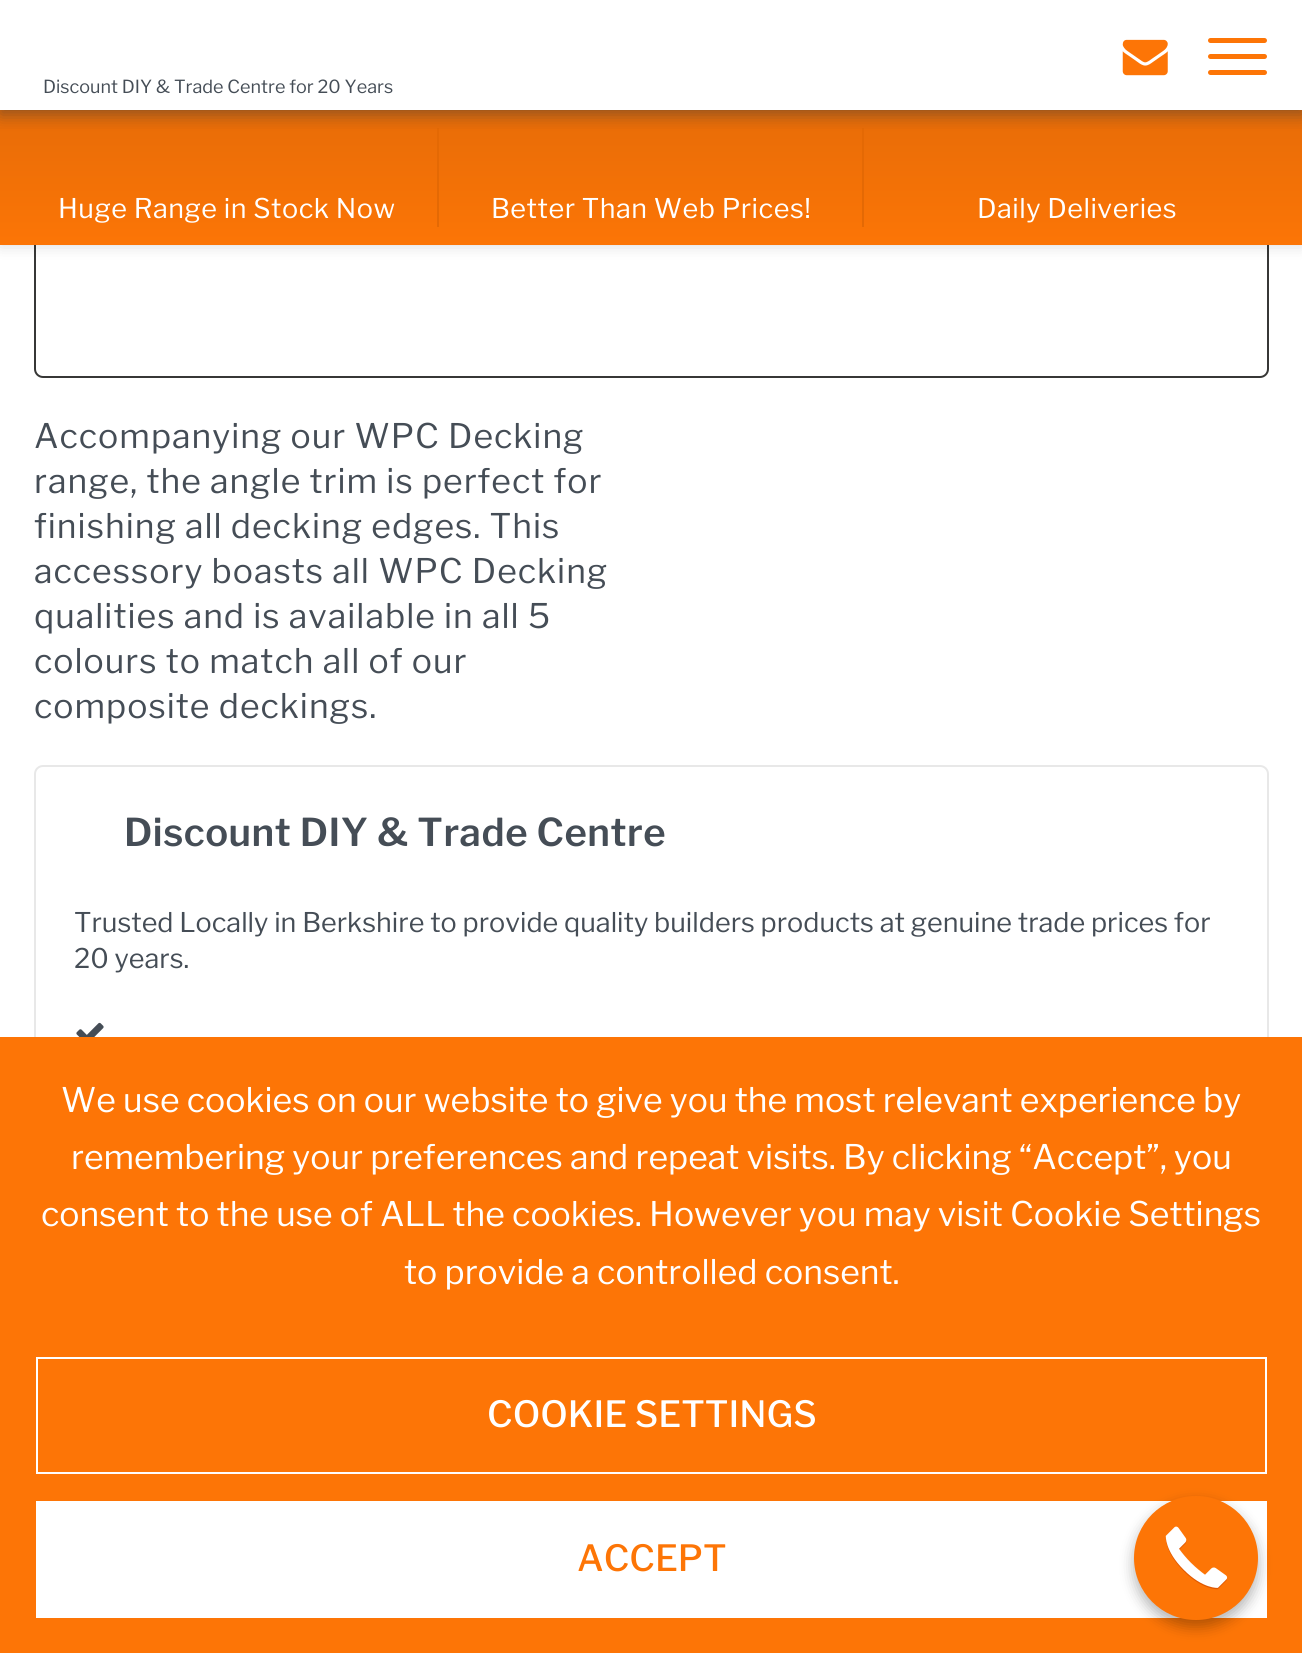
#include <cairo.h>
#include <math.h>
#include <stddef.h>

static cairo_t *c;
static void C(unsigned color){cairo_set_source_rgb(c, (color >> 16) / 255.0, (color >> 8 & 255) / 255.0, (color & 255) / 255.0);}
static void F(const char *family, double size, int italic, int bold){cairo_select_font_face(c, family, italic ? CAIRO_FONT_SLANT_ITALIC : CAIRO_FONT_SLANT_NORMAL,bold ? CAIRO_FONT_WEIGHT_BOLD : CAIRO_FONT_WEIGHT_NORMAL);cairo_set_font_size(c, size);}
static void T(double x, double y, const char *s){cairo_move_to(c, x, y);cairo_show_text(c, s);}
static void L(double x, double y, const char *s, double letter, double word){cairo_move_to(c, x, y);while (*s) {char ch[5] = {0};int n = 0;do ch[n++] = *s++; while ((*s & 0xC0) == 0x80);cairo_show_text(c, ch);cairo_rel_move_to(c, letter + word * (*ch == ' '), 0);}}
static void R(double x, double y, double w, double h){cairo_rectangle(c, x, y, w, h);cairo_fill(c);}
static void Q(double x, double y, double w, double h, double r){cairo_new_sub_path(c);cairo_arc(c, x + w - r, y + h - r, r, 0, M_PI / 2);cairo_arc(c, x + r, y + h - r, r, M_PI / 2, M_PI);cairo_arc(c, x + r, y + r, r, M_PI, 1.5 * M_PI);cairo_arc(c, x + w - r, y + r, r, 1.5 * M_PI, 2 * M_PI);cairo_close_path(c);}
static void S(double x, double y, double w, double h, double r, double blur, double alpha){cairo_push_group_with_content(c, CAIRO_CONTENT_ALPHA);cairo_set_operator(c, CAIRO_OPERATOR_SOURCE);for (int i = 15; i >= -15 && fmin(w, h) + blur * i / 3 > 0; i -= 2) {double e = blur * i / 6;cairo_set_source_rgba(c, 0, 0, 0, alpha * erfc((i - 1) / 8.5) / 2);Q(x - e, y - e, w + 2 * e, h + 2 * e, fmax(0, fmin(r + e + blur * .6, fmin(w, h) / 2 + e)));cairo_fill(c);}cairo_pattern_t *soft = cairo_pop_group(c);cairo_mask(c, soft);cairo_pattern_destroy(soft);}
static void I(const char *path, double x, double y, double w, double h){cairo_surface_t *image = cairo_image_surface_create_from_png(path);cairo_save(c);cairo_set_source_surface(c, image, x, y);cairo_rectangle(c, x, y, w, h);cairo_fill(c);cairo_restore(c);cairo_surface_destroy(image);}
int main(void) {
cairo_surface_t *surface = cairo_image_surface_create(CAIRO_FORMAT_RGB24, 1302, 1653);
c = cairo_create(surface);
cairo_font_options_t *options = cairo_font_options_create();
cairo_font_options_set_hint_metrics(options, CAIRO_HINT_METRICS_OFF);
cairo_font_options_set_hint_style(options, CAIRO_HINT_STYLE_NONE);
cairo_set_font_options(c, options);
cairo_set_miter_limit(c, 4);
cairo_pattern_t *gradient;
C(0xffffff);
cairo_paint(c);
Q(35,-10,1233,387,8);
C(0x373736);
cairo_stroke(c);
C(0x000000);
S(0,0,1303,245,0,8,.15);
C(0xffffff);
R(0,0,1302,110);
gradient = cairo_pattern_create_linear(651,245,651,110);
cairo_pattern_add_color_stop_rgba(gradient,0,0.988,0.459,0.024,1);
cairo_pattern_add_color_stop_rgba(gradient,1,0.906,0.424,0.027,1);
cairo_set_source(c,gradient);
cairo_pattern_destroy(gradient);
R(0,110,1302,135);
C(0xe46904);
R(437,128,2,99);
R(862,128,2,99);
cairo_save(c);
cairo_rectangle(c,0,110,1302,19);
cairo_clip(c);
C(0x393939);
S(0,5,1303,110,0,8,.5);
cairo_restore(c);
I("1.png",1122,39,46,37);
C(0xfd7506);
Q(1208,38,59,5,2.5);
cairo_fill(c);
Q(1208,54,59,5,2.5);
cairo_fill(c);
Q(1208,70,59,5,2.5);
cairo_fill(c);
F("Libre Franklin",18,0,0);
C(0x454d56);
T(43,93,"Discount DIY & Trade Centre for 20 Years");
F("Libre Franklin",27,0,0);
C(0xffffff);
L(58,218,"Huge Range in Stock Now",.5,0);
L(491,218,"Better Than Web Prices!",.5,0);
L(977,218,"Daily Deliveries",.5,0);
F("Libre Franklin",33.75,0,0);
C(0x454d56);
L(34,448,"Accompanying our WPC Decking",1,0);
L(34,493,"range, the angle trim is perfect for",1,0);
L(34,538,"finishing all decking edges. This",1,0);
L(34,583,"accessory boasts all WPC Decking",1,0);
L(34,628,"qualities and is available in all 5",1,0);
L(34,673,"colours to match all of our",1,0);
L(34,718,"composite deckings.",1,0);
Q(35,766,1233,754,8);
C(0xe8e8e8);
cairo_stroke(c);
F("Libre Franklin SemiBold",38.25,0,0);
C(0x454d56);
L(124,846,"Discount DIY & Trade Centre",.5,0);
F("Libre Franklin",27,0,0);
T(74,932,"Trusted Locally in Berkshire to provide quality builders products at genuine trade prices for");
T(74,968,"20 years.");
I("2.png",76,1022,28,15);
C(0xfd7506);
R(0,1037,1302,616);
F("Libre Franklin",33.75,0,0);
C(0xffffff);
T(61,1112,"We use cookies on our website to give you the most relevant experience by");
T(71,1169,"remembering your preferences and repeat visits. By clicking “Accept”, you");
T(41,1226,"consent to the use of ALL the cookies. However you may visit Cookie Settings");
T(404,1284,"to provide a controlled consent.");
R(36,1357,1231,2);
R(1265,1357,2,117);
C(0xfffcfc);
R(36,1472,1231,2);
C(0xffffff);
R(36,1357,2,117);
F("Libre Franklin Medium",36,0,0);
T(487,1427,"COOKIE SETTINGS");
R(36,1501,1231,117);
C(0xfd7506);
T(577,1571,"ACCEPT");
C(0x000000);
S(1134,1503,124,124,62,7,.3);
C(0xfd7506);
cairo_arc(c,1196,1558,62,0,2 * M_PI);
cairo_fill(c);
I("3.png",1165,1526,63,64);
cairo_surface_write_to_png(surface, "o.png");
cairo_font_options_destroy(options);
cairo_destroy(c);
cairo_surface_destroy(surface);
return 0;
}
